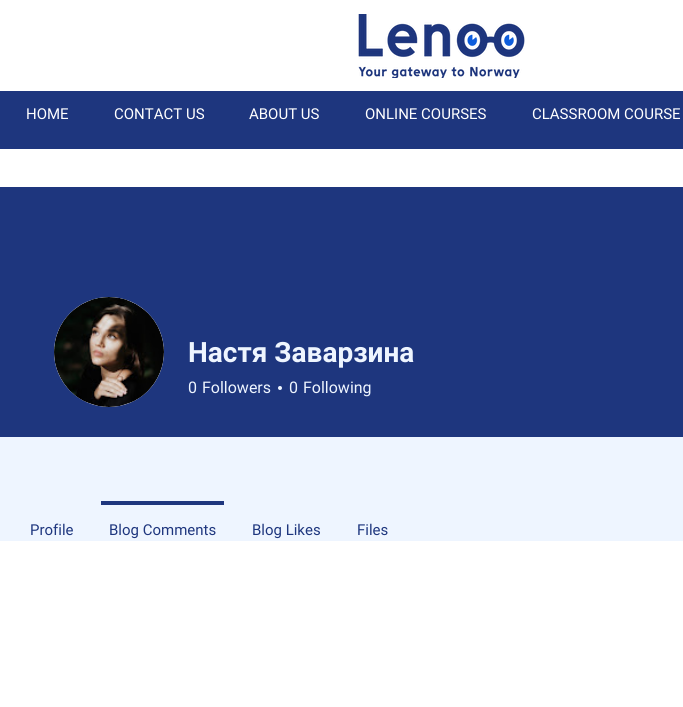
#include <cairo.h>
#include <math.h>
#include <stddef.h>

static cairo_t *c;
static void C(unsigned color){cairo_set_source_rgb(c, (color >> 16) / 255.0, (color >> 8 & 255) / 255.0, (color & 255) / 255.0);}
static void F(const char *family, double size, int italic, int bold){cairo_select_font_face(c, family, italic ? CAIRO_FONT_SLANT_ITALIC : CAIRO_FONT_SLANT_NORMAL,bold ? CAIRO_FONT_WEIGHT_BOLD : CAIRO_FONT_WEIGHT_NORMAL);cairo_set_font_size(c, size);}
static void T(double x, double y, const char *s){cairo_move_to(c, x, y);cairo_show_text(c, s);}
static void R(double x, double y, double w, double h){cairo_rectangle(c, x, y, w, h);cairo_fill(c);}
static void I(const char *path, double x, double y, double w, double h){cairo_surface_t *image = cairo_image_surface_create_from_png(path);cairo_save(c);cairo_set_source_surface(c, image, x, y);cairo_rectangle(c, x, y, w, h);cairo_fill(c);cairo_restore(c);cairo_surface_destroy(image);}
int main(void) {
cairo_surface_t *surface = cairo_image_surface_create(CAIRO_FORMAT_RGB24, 683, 707);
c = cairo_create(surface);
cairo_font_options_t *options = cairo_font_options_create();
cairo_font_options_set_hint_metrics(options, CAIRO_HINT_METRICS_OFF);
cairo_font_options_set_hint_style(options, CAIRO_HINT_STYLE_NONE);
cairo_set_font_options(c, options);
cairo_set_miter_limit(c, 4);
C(0x1e367e);
cairo_paint(c);
C(0xffffff);
R(0,0,683,91);
I("1.png",358,14,167,64);
F("Roboto",15,0,0);
T(26,119,"HOME");
T(114,119,"CONTACT US");
T(249,119,"ABOUT US");
T(365,119,"ONLINE COURSES");
T(532,119,"CLASSROOM COURSE");
R(0,149,683,558);
C(0x1e367e);
R(0,187,683,250);
C(0xd8d8d8);
cairo_new_path(c);
cairo_arc(c,109,352,55,0,2 * M_PI);
cairo_fill(c);
I("2.png",54,297,110,110);
F("Roboto",28,0,1);
C(0xeef5ff);
T(188,362,"Настя Заварзина");
F("Roboto",16,0,0);
T(188,393,"0");
T(202,393,"Followers");
cairo_new_path(c);
cairo_arc(c,280,388,2,0,2 * M_PI);
cairo_fill(c);
T(289,393,"0");
T(303,393,"Following");
R(0,437,683,104);
F("Roboto",15,0,0);
C(0x1e367e);
T(30,535,"Profile");
R(101,501,123,4);
T(109,535,"Blog Comments");
T(252,535,"Blog Likes");
T(357,535,"Files");
cairo_surface_write_to_png(surface, "o.png");
cairo_font_options_destroy(options);
cairo_destroy(c);
cairo_surface_destroy(surface);
return 0;
}
